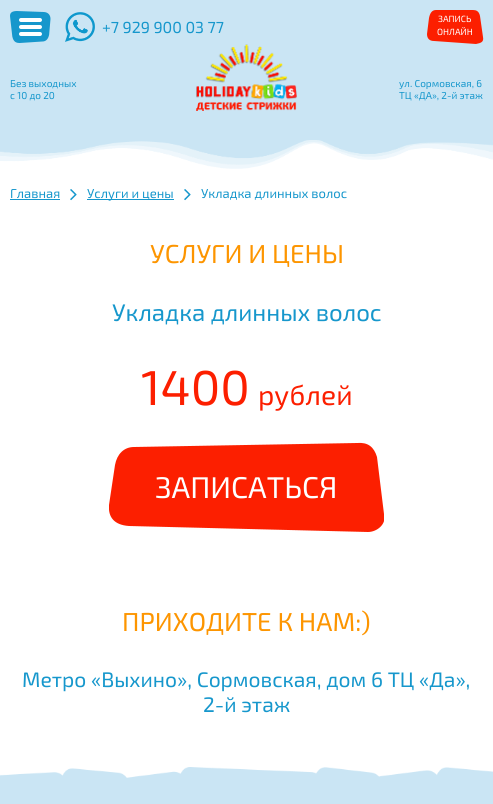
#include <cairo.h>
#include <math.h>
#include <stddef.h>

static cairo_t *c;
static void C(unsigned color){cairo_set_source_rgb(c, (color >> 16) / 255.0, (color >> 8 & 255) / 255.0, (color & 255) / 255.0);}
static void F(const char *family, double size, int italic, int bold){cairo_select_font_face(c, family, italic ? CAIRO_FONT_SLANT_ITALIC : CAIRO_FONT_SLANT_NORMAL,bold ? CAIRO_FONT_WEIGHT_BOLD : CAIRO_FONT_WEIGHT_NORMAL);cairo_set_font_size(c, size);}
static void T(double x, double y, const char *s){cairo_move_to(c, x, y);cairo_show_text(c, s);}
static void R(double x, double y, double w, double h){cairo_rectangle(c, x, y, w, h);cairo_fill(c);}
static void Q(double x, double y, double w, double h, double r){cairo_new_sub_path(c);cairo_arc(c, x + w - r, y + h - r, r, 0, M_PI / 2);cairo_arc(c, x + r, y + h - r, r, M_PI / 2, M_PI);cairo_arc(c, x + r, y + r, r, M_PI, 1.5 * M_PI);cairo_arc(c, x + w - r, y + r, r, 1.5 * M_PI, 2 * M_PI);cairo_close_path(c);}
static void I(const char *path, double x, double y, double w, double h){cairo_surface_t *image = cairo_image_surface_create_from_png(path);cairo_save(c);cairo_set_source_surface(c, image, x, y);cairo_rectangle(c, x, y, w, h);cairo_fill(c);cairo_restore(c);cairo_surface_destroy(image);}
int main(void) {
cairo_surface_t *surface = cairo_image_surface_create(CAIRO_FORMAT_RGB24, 493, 804);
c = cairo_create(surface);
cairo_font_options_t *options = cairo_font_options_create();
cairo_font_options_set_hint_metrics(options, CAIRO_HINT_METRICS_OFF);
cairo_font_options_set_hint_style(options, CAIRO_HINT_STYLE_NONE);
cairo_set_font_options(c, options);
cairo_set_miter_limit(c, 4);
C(0xffffff);
cairo_paint(c);
C(0xcae5f4);
R(0,0,493,140);
I("1.png",10,11,41,32);
C(0xffffff);
Q(19,18,23,4,2);
cairo_fill(c);
Q(19,25,23,4,2);
cairo_fill(c);
Q(19,32,23,4,2);
cairo_fill(c);
I("2.png",65,12,30,30);
F("Exo 2",16,0,0);
C(0x1697cc);
T(102,33,"+7 929 900 03 77");
C(0xfc1f00);
cairo_set_fill_rule(c,CAIRO_FILL_RULE_EVEN_ODD);
cairo_new_path(c);
cairo_move_to(c,436,10);
cairo_line_to(c,473,10);
cairo_curve_to(c,476,10,479,11,480,16);
cairo_line_to(c,483,37);
cairo_curve_to(c,484,42,481,43,476,44);
cairo_line_to(c,434,41);
cairo_curve_to(c,429,41,427,38,427,34);
cairo_line_to(c,429,18);
cairo_curve_to(c,430,13,432,10,436,10);
cairo_close_path(c);
cairo_fill(c);
F("Exo 2",9,0,0);
C(0xffffff);
T(438,22,"ЗАПИСЬ");
T(437,35,"ОНЛАЙН");
I("3.png",196,44,101,67);
F("Exo 2",10,0,0);
C(0x1697cc);
T(10,87,"Без выходных");
T(10,99,"с 10 до 20");
T(399,87,"ул. Сормовская, 6");
T(399,99,"ТЦ «ДА», 2-й этаж");
I("4.png",0,140,493,29);
F("Exo 2",13,0,0);
T(10,198,"Главная");
R(10,199,50,1);
I("5.png",70,189,7,12);
R(87,199,87,1);
T(87,198,"Услуги и цены");
I("5.png",184,189,7,12);
T(201,198,"Укладка длинных волос");
F("Exo 2",26,0,0);
C(0xfd9500);
T(150,263,"УСЛУГИ И ЦЕНЫ");
F("Exo 2",24,0,0);
C(0x1697cc);
T(112,321,"Укладка длинных волос");
F("Exo 2",49,0,0);
C(0xfc1f00);
T(141,405,"1400");
F("Exo 2",28,0,0);
T(258,405,"рублей");
cairo_save(c);
cairo_set_fill_rule(c,CAIRO_FILL_RULE_WINDING);
cairo_rectangle(c,109,440,275,95);
cairo_clip(c);
cairo_set_fill_rule(c,CAIRO_FILL_RULE_EVEN_ODD);
cairo_new_path(c);
cairo_move_to(c,134,447);
cairo_line_to(c,357,443);
cairo_curve_to(c,368,442,374,447,377,457);
cairo_line_to(c,384,514);
cairo_curve_to(c,387,524,377,532,368,532);
cairo_line_to(c,129,526);
cairo_curve_to(c,114,525,108,517,109,505);
cairo_line_to(c,115,465);
cairo_curve_to(c,117,454,124,447,134,447);
cairo_close_path(c);
cairo_fill(c);
cairo_restore(c);
F("Exo 2",30,0,0);
C(0xffffff);
T(155,498,"ЗАПИСАТЬСЯ");
F("Exo 2",26,0,0);
C(0xfd9500);
T(122,631,"ПРИХОДИТЕ К НАМ:)");
F("Exo 2",21,0,0);
C(0x1697cc);
T(22,687,"Метро «Выхино», Сормовская, дом 6 ТЦ «Да»,");
T(203,712,"2-й этаж");
I("6.png",0,767,493,19);
C(0xcae5f4);
R(0,786,493,18);
cairo_surface_write_to_png(surface, "o.png");
cairo_font_options_destroy(options);
cairo_destroy(c);
cairo_surface_destroy(surface);
return 0;
}
